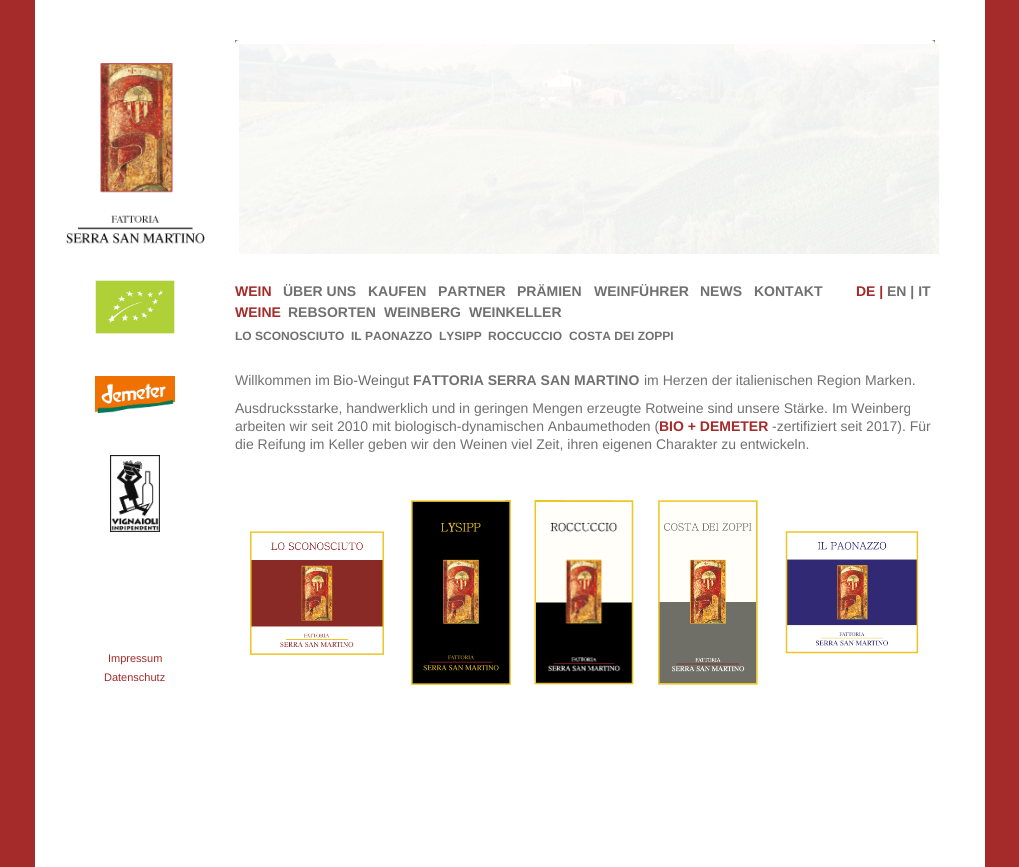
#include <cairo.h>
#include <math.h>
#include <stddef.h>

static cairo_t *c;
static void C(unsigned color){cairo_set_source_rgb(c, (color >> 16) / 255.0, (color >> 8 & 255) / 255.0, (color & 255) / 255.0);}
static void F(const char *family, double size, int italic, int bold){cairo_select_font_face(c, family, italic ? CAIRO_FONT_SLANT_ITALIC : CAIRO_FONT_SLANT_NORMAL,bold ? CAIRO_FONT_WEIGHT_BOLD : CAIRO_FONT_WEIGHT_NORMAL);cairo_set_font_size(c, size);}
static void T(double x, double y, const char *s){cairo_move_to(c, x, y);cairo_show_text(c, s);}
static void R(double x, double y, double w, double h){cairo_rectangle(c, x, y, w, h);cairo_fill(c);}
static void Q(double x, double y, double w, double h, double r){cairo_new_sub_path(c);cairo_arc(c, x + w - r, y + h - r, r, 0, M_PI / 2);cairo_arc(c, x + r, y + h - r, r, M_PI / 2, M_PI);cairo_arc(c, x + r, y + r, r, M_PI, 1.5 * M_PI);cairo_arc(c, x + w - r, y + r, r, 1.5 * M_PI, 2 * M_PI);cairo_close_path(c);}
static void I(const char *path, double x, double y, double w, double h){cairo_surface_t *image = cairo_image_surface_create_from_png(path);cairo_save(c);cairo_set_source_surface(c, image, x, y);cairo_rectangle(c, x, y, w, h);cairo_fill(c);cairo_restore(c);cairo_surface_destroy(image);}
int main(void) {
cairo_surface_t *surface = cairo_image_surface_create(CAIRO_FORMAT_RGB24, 1019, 867);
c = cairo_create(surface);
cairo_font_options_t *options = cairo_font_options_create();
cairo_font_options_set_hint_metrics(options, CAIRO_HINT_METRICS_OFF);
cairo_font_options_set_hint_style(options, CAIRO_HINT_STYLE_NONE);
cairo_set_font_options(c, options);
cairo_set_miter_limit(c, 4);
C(0xa52a2a);
cairo_paint(c);
C(0xffffff);
R(35,0,950,867);
F("Liberation Sans",14,0,1);
C(0xa52a2a);
T(235,296,"WEIN");
C(0x707070);
T(283,296,"ÜBER UNS");
T(368,296,"KAUFEN");
T(438,296,"PARTNER");
T(517,296,"PRÄMIEN");
T(594,296,"WEINFÜHRER");
T(700,296,"NEWS");
T(754,296,"KONTAKT");
C(0xa52a2a);
T(856,296,"DE |");
C(0x707070);
T(887,296,"EN | IT");
C(0xa52a2a);
T(235,317,"WEINE");
C(0x707070);
T(288,317,"REBSORTEN");
T(384,317,"WEINBERG");
T(469,317,"WEINKELLER");
F("Liberation Sans",12,0,1);
T(235,340,"LO SCONOSCIUTO");
T(351,340,"IL PAONAZZO");
T(439,340,"LYSIPP");
T(488,340,"ROCCUCCIO");
T(569,340,"COSTA DEI ZOPPI");
F("Liberation Sans",14,0,0);
T(235,385,"Willkommen im");
C(0x696969);
T(333,385,"Bio-Weingut");
F("Liberation Sans",14,0,1);
C(0x707070);
T(413,385,"FATTORIA SERRA SAN MARTINO");
F("Liberation Sans",14,0,0);
T(644,385,"im Herzen der italienischen Region Marken.");
T(235,413,"Ausdrucksstarke, handwerklich und in geringen Mengen erzeugte Rotweine sind unsere Stärke. Im Weinberg");
T(235,431,"arbeiten wir seit 2010 mit biologisch-dynamischen Anbaumethoden (");
F("Liberation Sans",14,0,1);
C(0xa52a2a);
T(659,431,"BIO + DEMETER");
F("Liberation Sans",14,0,0);
C(0x707070);
T(772,431,"-zertifiziert seit 2017). Für");
T(235,449,"die Reifung im Keller geben wir den Weinen viel Zeit, ihren eigenen Charakter zu entwickeln.");
I("1.png",250,531,134,124);
I("2.png",411,500,100,185);
I("3.png",534,500,100,185);
I("4.png",658,500,100,185);
I("5.png",785,531,134,123);
C(0x808080);
R(235,40,700,4);
C(0xffffff);
Q(237,42,696,214,2);
cairo_fill_preserve(c);
cairo_set_line_width(c,4);
cairo_stroke(c);
I("6.png",239,44,700,210);
I("7.png",66,63,139,181);
I("8.png",95,280,80,54);
I("9.png",95,376,80,37);
I("10.png",110,455,50,77);
F("Liberation Sans",11,0,0);
C(0xa52a2a);
T(108,662,"Impressum");
T(104,681,"Datenschutz");
cairo_surface_write_to_png(surface, "o.png");
cairo_font_options_destroy(options);
cairo_destroy(c);
cairo_surface_destroy(surface);
return 0;
}
